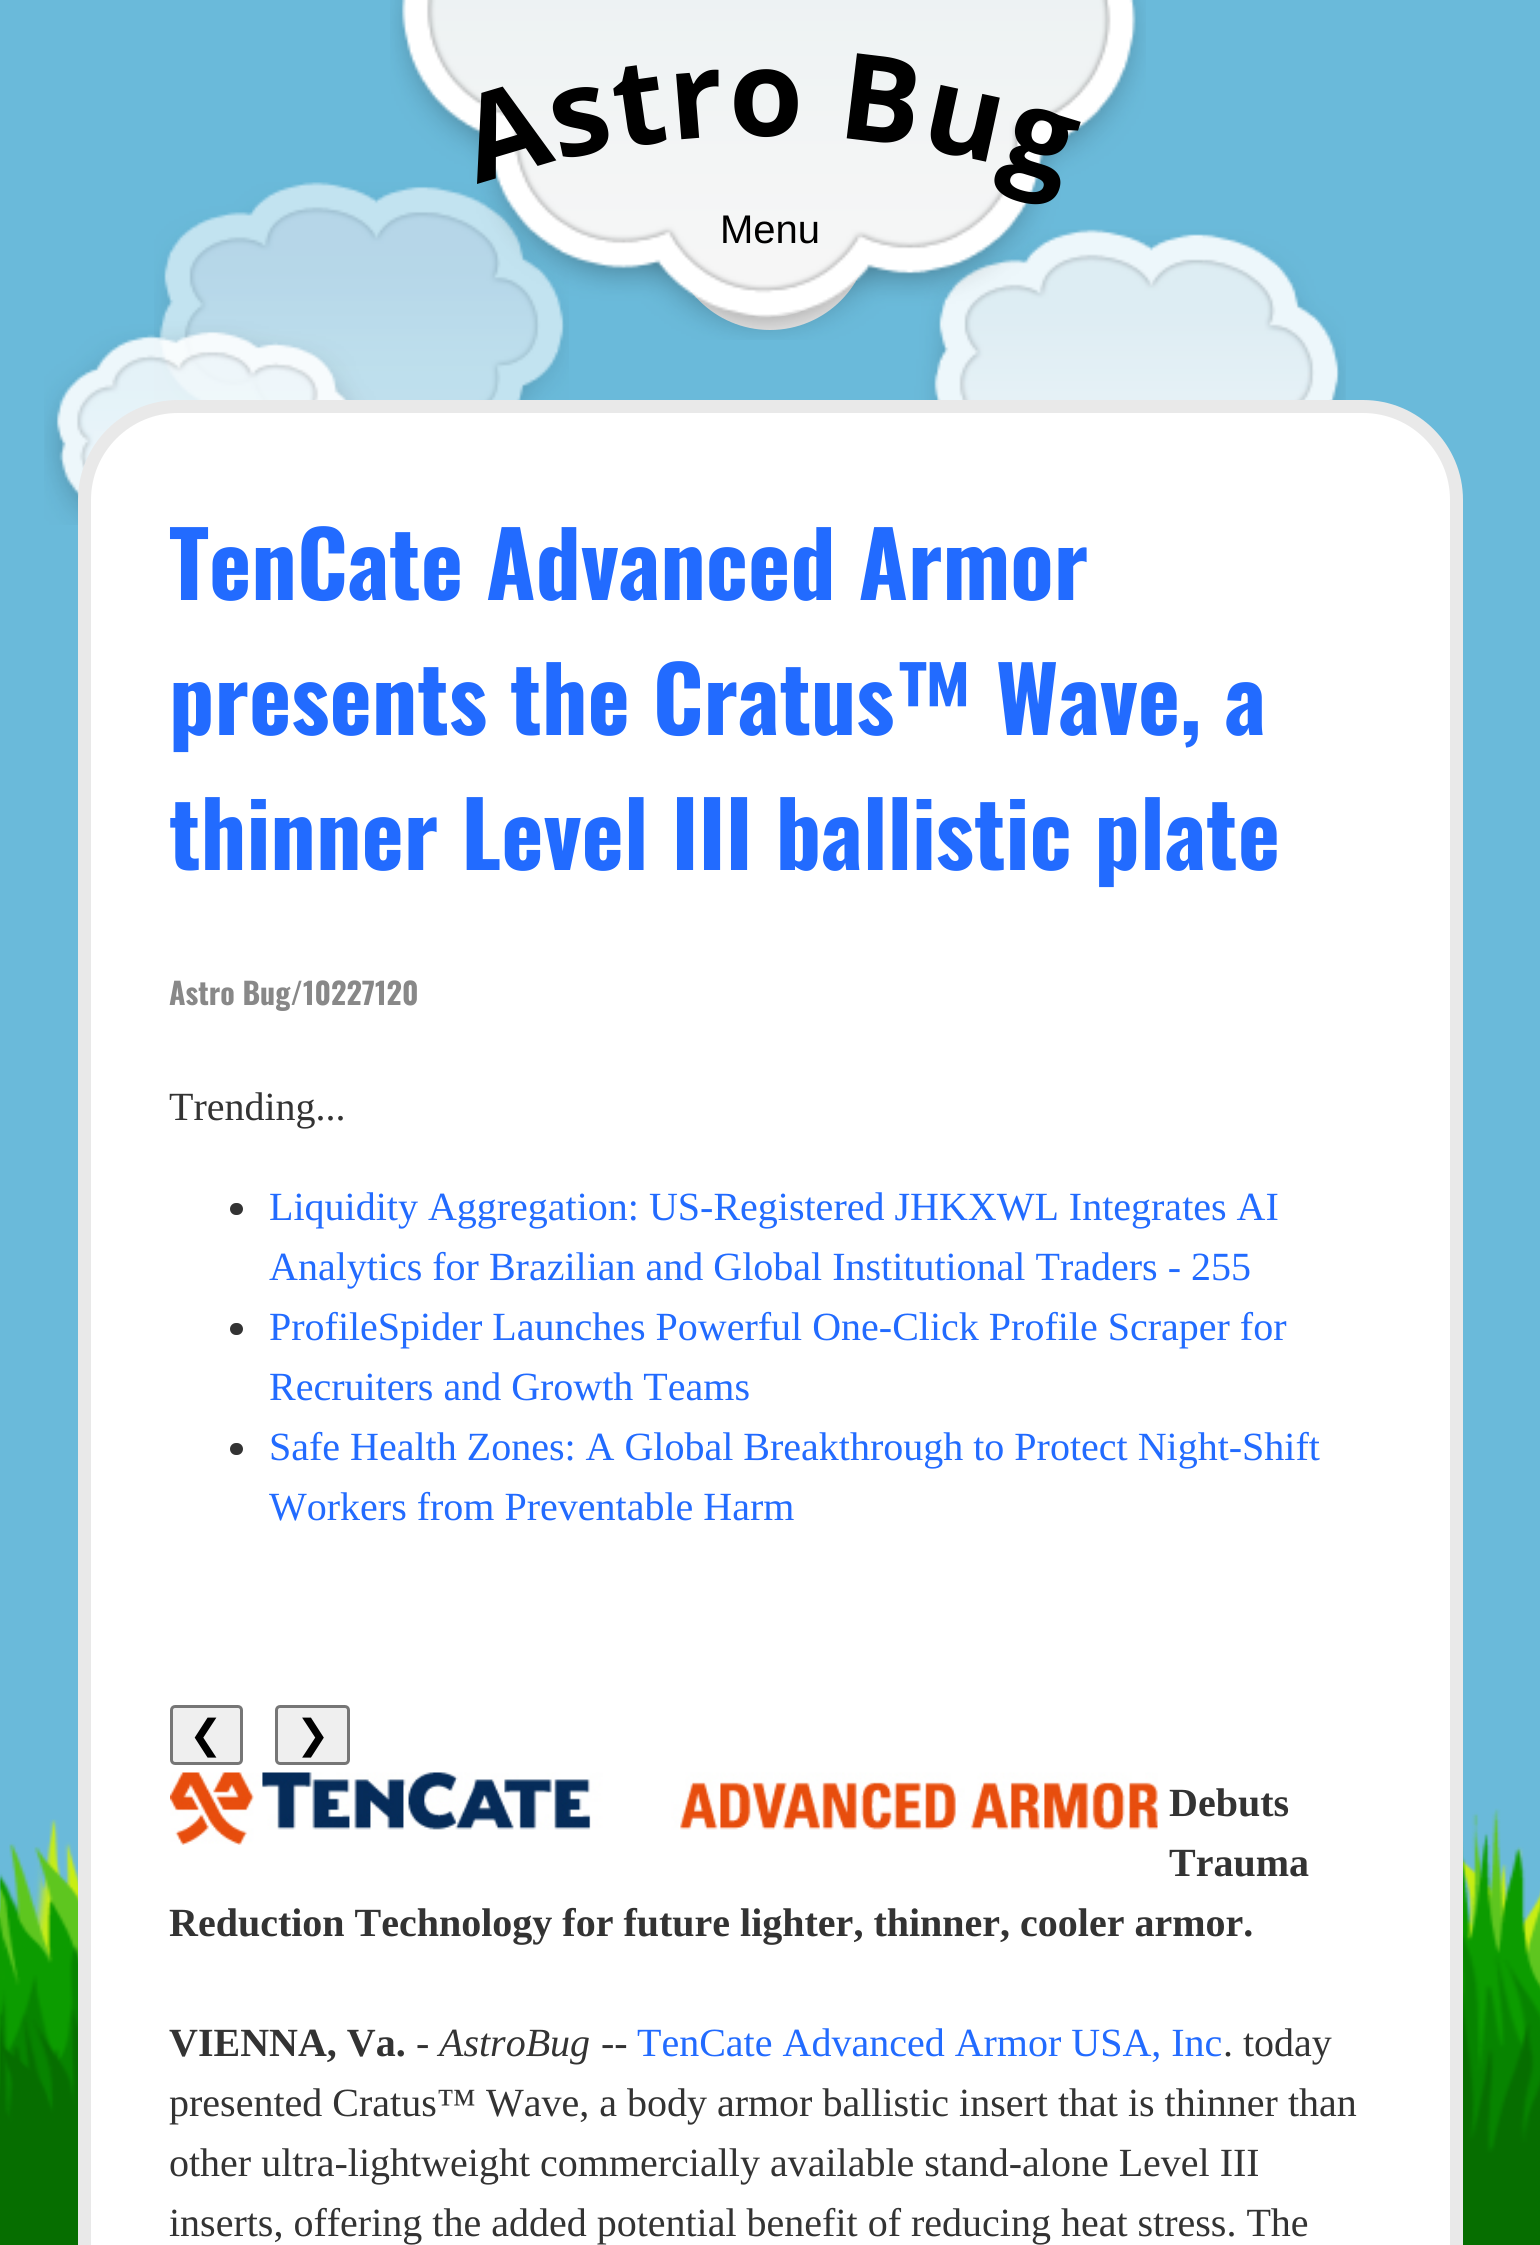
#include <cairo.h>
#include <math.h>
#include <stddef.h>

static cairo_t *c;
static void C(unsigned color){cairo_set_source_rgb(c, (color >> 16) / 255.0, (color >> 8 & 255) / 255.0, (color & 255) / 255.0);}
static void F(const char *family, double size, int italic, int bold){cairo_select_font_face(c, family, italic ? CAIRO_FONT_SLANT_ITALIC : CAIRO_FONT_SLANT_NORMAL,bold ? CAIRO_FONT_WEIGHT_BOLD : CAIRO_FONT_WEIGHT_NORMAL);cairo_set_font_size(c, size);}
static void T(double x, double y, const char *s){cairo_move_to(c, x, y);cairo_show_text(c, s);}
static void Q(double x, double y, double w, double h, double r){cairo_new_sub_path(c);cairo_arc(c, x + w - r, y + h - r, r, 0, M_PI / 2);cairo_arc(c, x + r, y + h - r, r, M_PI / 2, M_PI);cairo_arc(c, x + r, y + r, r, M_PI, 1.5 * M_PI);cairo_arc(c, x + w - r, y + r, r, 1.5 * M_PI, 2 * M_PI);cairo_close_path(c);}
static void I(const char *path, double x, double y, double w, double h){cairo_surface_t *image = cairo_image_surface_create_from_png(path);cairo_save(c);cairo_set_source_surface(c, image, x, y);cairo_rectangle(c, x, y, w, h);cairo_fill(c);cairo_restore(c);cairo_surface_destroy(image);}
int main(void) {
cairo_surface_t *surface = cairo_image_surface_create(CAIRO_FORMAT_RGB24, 1540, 2245);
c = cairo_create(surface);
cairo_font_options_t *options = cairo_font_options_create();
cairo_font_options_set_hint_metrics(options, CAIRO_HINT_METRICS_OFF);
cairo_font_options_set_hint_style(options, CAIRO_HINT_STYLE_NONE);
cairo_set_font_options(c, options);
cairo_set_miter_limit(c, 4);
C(0x6abada);
cairo_paint(c);
I("2.png",154,182,415,219);
I("3.png",44,229,1302,296);
C(0xffffff);
cairo_arc(c,770,230,93.5,0,2 * M_PI);
cairo_fill_preserve(c);
C(0xe9e9e9);
cairo_set_line_width(c,13);
cairo_stroke(c);
I("1.png",390,0,756,340);
F("Open Sans",120,0,1);
C(0x000000);
cairo_save(c);
cairo_translate(c,477,184);
cairo_rotate(c,-16.6 * M_PI / 180);
T(0,0,"A");
cairo_restore(c);
cairo_save(c);
cairo_translate(c,558,160);
cairo_rotate(c,-11.9 * M_PI / 180);
T(0,0,"s");
cairo_restore(c);
cairo_save(c);
cairo_translate(c,619,148);
cairo_rotate(c,-8.1 * M_PI / 180);
T(0,0,"t");
cairo_restore(c);
cairo_save(c);
cairo_translate(c,672,140);
cairo_rotate(c,-4.6 * M_PI / 180);
T(0,0,"r");
cairo_restore(c);
cairo_save(c);
cairo_translate(c,729,136);
cairo_rotate(c,-0.2 * M_PI / 180);
T(0,0,"o");
cairo_restore(c);
cairo_save(c);
cairo_translate(c,836,137);
cairo_rotate(c,6.9 * M_PI / 180);
T(0,0,"B");
cairo_restore(c);
cairo_save(c);
cairo_translate(c,918,147);
cairo_rotate(c,12.2 * M_PI / 180);
T(0,0,"u");
cairo_restore(c);
cairo_save(c);
cairo_translate(c,998,165);
cairo_rotate(c,17.1 * M_PI / 180);
T(0,0,"g");
cairo_restore(c);
F("Liberation Sans",40,0,0);
T(720,243,"Menu");
I("5.png",0,1808,1540,437);
C(0xffffff);
Q(84.5,406.5,1372,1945,93.5);
cairo_fill_preserve(c);
C(0xe9e9e9);
cairo_stroke(c);
F("Oswald",90,0,1);
C(0x226bff);
T(169,600,"TenCate Advanced Armor");
T(169,735,"presents the Cratus™ Wave, a");
T(169,870,"thinner Level III ballistic plate");
F("Oswald",30,0,1);
C(0x888888);
T(169,1005,"Astro Bug/10227120");
F("Liberation Serif",40,0,0);
C(0x333333);
T(169,1120,"Trending...");
Q(230,1203,13,12,6);
cairo_fill(c);
C(0x226bff);
T(269,1220,"Liquidity Aggregation: US-Registered JHKXWL Integrates AI");
T(269,1280,"Analytics for Brazilian and Global Institutional Traders - 255");
C(0x333333);
Q(230,1323,13,12,6);
cairo_fill(c);
C(0x226bff);
T(269,1340,"ProfileSpider Launches Powerful One-Click Profile Scraper for");
T(269,1400,"Recruiters and Growth Teams");
C(0x333333);
Q(230,1443,13,12,6);
cairo_fill(c);
C(0x226bff);
T(269,1460,"Safe Health Zones: A Global Breakthrough to Protect Night-Shift");
T(269,1520,"Workers from Preventable Harm");
C(0xefefef);
Q(171.5,1706.5,70,57,3.5);
cairo_fill_preserve(c);
C(0x767676);
cairo_set_line_width(c,3);
cairo_stroke(c);
F("DejaVu Sans",40,0,0);
C(0x000000);
T(189,1748,"❮");
C(0xefefef);
Q(276.5,1706.5,72,57,3.5);
cairo_fill_preserve(c);
C(0x767676);
cairo_stroke(c);
C(0x000000);
T(296,1748,"❯");
I("4.png",170,1772,988,73);
F("Liberation Serif",40,0,1);
C(0x333333);
T(1169,1816,"Debuts");
T(1169,1876,"Trauma");
T(169,1936,"Reduction Technology for future lighter, thinner, cooler armor.");
T(169,2056,"VIENNA, Va.");
F("Liberation Serif",40,0,0);
T(416,2056,"-");
F("Liberation Serif",40,1,0);
T(439,2056,"AstroBug");
F("Liberation Serif",40,0,0);
T(601,2056,"--");
C(0x226bff);
T(637,2056,"TenCate Advanced Armor USA, Inc");
C(0x333333);
T(1223,2056,". today");
T(169,2116,"presented Cratus™ Wave, a body armor ballistic insert that is thinner than");
T(169,2176,"other ultra-lightweight commercially available stand-alone Level III");
T(169,2236,"inserts, offering the added potential benefit of reducing heat stress. The");
cairo_surface_write_to_png(surface, "o.png");
cairo_font_options_destroy(options);
cairo_destroy(c);
cairo_surface_destroy(surface);
return 0;
}
